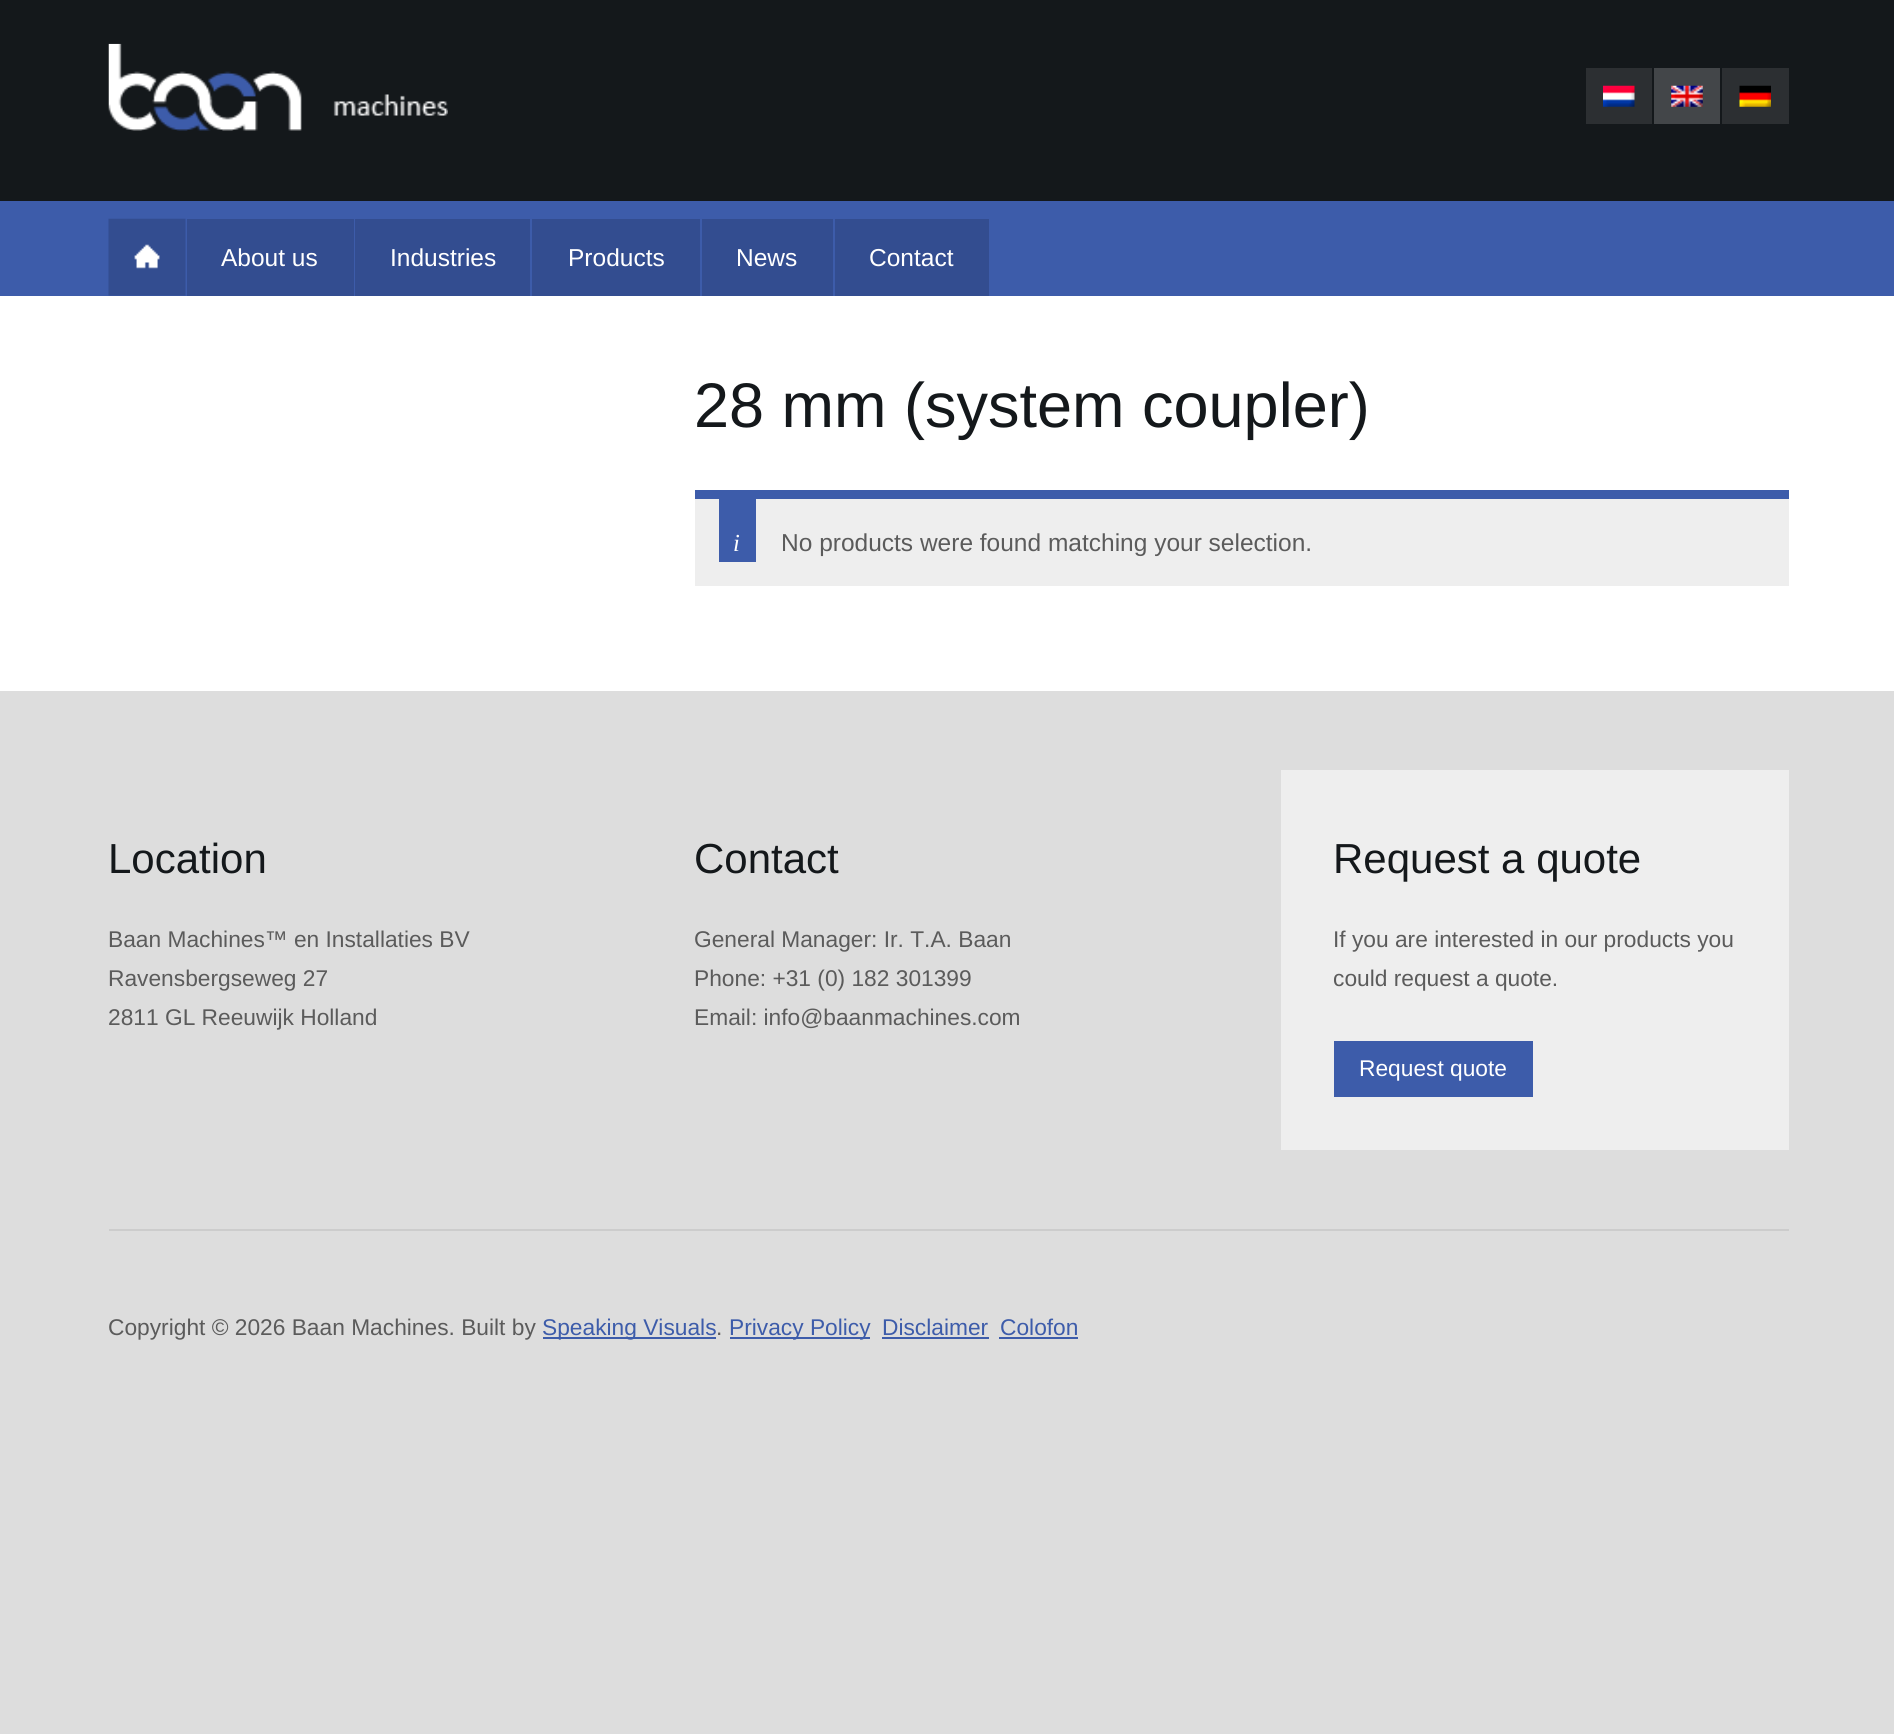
#include <cairo.h>
#include <math.h>
#include <stddef.h>

static cairo_t *c;
static void C(unsigned color){cairo_set_source_rgb(c, (color >> 16) / 255.0, (color >> 8 & 255) / 255.0, (color & 255) / 255.0);}
static void F(const char *family, double size, int italic, int bold){cairo_select_font_face(c, family, italic ? CAIRO_FONT_SLANT_ITALIC : CAIRO_FONT_SLANT_NORMAL,bold ? CAIRO_FONT_WEIGHT_BOLD : CAIRO_FONT_WEIGHT_NORMAL);cairo_set_font_size(c, size);}
static void T(double x, double y, const char *s){cairo_move_to(c, x, y);cairo_show_text(c, s);}
static void R(double x, double y, double w, double h){cairo_rectangle(c, x, y, w, h);cairo_fill(c);}
static void I(const char *path, double x, double y, double w, double h){cairo_surface_t *image = cairo_image_surface_create_from_png(path);cairo_save(c);cairo_set_source_surface(c, image, x, y);cairo_rectangle(c, x, y, w, h);cairo_fill(c);cairo_restore(c);cairo_surface_destroy(image);}
int main(void) {
cairo_surface_t *surface = cairo_image_surface_create(CAIRO_FORMAT_RGB24, 1894, 1734);
c = cairo_create(surface);
cairo_font_options_t *options = cairo_font_options_create();
cairo_font_options_set_hint_metrics(options, CAIRO_HINT_METRICS_OFF);
cairo_font_options_set_hint_style(options, CAIRO_HINT_STYLE_NONE);
cairo_set_font_options(c, options);
cairo_set_miter_limit(c, 4);
C(0xdddddd);
cairo_paint(c);
C(0xffffff);
R(0,296,1894,395);
C(0x14181b);
R(0,0,1894,201);
I("1.png",108,43,340,88);
C(0x2c2f32);
R(1586,68,66,56);
I("2.png",1603,85,32,22);
C(0x434649);
R(1654,68,66,56);
I("3.png",1671,85,32,22);
C(0x2c2f32);
R(1722,68,67,56);
I("4.png",1739,85,32,22);
C(0x3d5caa);
R(0,201,1894,95);
I("5.png",108,218,78,78);
C(0x334d90);
R(187,219,167,77);
F("Liberation Sans",24.5,0,0);
C(0xffffff);
T(221,266,"About us");
C(0x334d90);
R(355,219,175,77);
C(0xffffff);
T(390,266,"Industries");
C(0x334d90);
R(532,219,168,77);
C(0xffffff);
T(568,266,"Products");
C(0x334d90);
R(702,219,131,77);
C(0xffffff);
T(736,266,"News");
C(0x334d90);
R(835,219,154,77);
C(0xffffff);
T(869,266,"Contact");
F("Liberation Sans",63,0,0);
C(0x14181b);
T(694,427,"28 mm (system coupler)");
C(0xeeeeee);
R(695,499,1094,87);
C(0x3d5caa);
R(695,490,1094,9);
R(719,499,37,63);
F("Liberation Serif",24.5,1,0);
C(0xffffff);
T(733,551,"i");
F("Liberation Sans",24.5,0,0);
C(0x5b5b5b);
T(781,551,"No products were found matching your selection.");
C(0xcccccc);
R(109,1229,1680,2);
F("Liberation Sans",42,0,0);
C(0x14181b);
T(108,873,"Location");
F("Liberation Sans",22.75,0,0);
C(0x5b5b5b);
T(108,947,"Baan Machines™ en Installaties BV");
T(108,986,"Ravensbergseweg 27");
T(108,1025,"2811 GL Reeuwijk Holland");
F("Liberation Sans",42,0,0);
C(0x14181b);
T(694,873,"Contact");
F("Liberation Sans",22.75,0,0);
C(0x5b5b5b);
T(694,947,"General Manager: Ir. T.A. Baan");
T(694,986,"Phone: +31 (0) 182 301399");
T(694,1025,"Email: info@baanmachines.com");
C(0xeeeeee);
R(1281,770,508,380);
F("Liberation Sans",42,0,0);
C(0x14181b);
T(1333,873,"Request a quote");
F("Liberation Sans",22.75,0,0);
C(0x5b5b5b);
T(1333,947,"If you are interested in our products you");
T(1333,986,"could request a quote.");
C(0x3d5caa);
R(1334,1041,199,56);
C(0xffffff);
T(1359,1076,"Request quote");
C(0x5b5b5b);
T(108,1335,"Copyright © 2026 Baan Machines. Built by");
C(0x3d5caa);
R(543,1337,173,2);
T(542,1335,"Speaking Visuals");
C(0x5b5b5b);
T(716,1335,".");
C(0x3d5caa);
R(730,1337,140,2);
T(729,1335,"Privacy Policy");
T(882,1335,"Disclaimer");
R(882,1337,107,2);
T(1000,1335,"Colofon");
R(999,1337,79,2);
cairo_surface_write_to_png(surface, "o.png");
cairo_font_options_destroy(options);
cairo_destroy(c);
cairo_surface_destroy(surface);
return 0;
}
